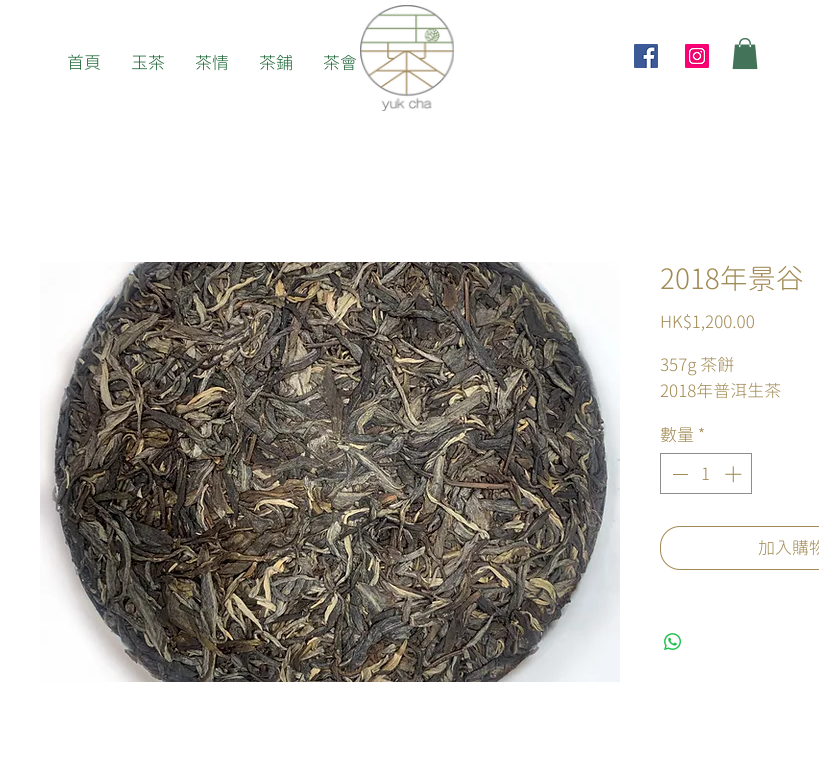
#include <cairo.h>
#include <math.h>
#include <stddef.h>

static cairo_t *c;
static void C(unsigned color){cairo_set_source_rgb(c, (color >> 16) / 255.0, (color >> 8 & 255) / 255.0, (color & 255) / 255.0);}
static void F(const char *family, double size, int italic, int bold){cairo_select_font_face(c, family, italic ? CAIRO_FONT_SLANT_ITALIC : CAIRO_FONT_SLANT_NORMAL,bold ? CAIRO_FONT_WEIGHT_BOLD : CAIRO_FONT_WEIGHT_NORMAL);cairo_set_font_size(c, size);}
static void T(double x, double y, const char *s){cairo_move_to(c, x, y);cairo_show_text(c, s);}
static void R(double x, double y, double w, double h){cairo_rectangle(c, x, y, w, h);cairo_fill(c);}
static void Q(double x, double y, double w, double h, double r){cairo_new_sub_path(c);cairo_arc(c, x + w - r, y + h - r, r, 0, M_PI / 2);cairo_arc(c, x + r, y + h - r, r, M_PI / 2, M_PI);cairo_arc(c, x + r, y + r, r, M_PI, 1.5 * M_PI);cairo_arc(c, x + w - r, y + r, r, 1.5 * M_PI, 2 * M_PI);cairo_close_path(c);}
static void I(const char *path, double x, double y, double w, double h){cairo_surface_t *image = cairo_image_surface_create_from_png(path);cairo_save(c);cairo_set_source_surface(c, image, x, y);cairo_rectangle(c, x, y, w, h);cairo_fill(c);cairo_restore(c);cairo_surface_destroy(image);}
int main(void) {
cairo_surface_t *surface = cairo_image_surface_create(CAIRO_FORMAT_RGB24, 819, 771);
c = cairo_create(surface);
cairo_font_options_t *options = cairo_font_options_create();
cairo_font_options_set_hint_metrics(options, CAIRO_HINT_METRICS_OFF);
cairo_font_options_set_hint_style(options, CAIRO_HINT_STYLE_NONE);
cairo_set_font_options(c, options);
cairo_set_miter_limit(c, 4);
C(0xffffff);
cairo_paint(c);
F("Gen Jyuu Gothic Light",17,0,0);
C(0x196332);
T(67,69,"首頁");
T(131,69,"玉茶");
T(195,69,"茶情");
T(259,69,"茶鋪");
T(323,69,"茶會");
I("1.png",360,5,94,106);
I("2.png",634,44,24,24);
I("3.png",685,44,24,24);
I("4.png",732,38,26,32);
I("5.png",40,262,580,420);
F("Gen Jyuu Gothic Light",28,0,0);
C(0xa18a53);
T(660,289,"2018年景谷");
F("Gen Jyuu Gothic Light",17,0,0);
T(660,328,"HK$1,200.00");
T(660,371,"357g 茶餅");
T(660,397,"2018年普洱生茶");
T(660,441,"數量 *");
cairo_rectangle(c,660.5,453.5,91,40);
C(0x8d8d8d);
cairo_set_line_width(c,1);
cairo_stroke(c);
C(0xa18a53);
R(673,474,15,1);
T(701,480,"1");
I("6.png",725,466,17,17);
Q(660.5,526.5,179,43,19.5);
cairo_stroke(c);
T(758,554,"加入購物");
I("7.png",664,633,17,17);
cairo_surface_write_to_png(surface, "o.png");
cairo_font_options_destroy(options);
cairo_destroy(c);
cairo_surface_destroy(surface);
return 0;
}
